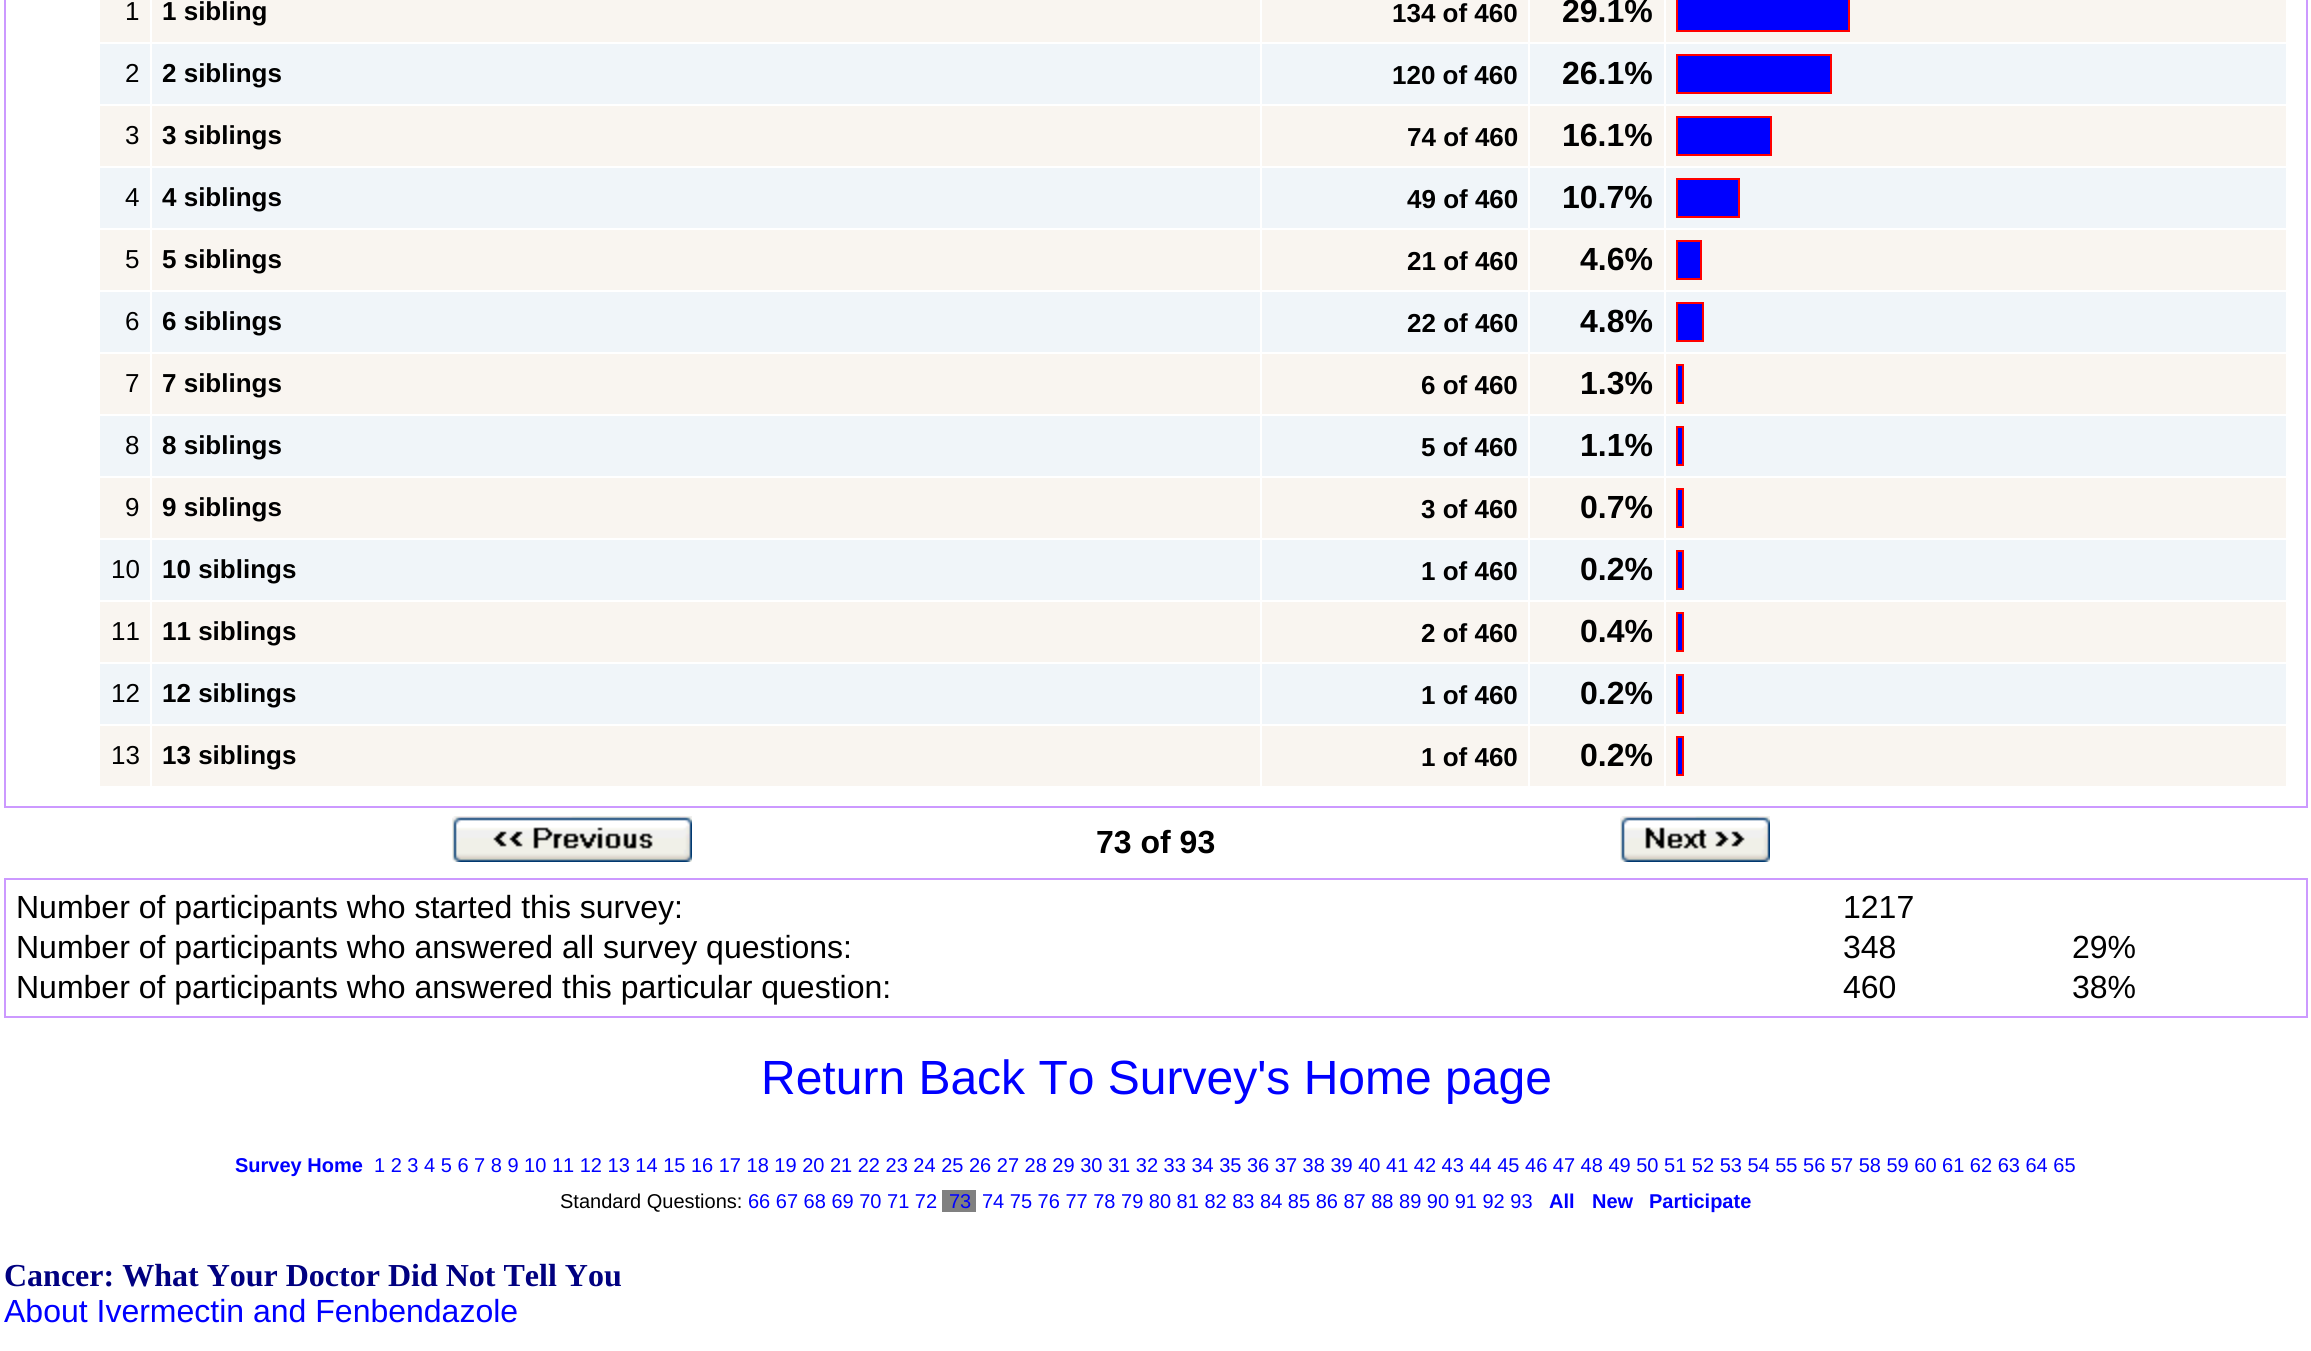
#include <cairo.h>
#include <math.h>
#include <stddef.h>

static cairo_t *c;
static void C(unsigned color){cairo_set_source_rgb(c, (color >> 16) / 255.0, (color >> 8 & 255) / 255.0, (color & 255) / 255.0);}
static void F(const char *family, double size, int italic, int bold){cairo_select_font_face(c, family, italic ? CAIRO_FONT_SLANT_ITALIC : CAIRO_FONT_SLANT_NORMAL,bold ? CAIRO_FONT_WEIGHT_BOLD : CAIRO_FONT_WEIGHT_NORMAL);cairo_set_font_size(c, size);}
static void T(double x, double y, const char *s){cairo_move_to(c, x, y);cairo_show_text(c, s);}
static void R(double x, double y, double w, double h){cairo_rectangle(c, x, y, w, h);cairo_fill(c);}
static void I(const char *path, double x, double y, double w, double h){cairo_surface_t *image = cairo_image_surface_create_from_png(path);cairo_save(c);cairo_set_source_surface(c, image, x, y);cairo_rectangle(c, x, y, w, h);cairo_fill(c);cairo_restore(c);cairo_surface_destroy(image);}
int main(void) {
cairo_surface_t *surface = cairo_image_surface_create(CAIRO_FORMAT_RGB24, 2311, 1351);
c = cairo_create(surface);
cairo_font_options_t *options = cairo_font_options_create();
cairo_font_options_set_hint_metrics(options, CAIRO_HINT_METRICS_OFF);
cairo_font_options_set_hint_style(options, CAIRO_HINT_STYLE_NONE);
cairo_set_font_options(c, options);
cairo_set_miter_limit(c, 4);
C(0xffffff);
cairo_paint(c);
C(0xcc99ff);
R(2306,0,2,808);
R(4,806,2304,2);
R(4,0,2,808);
C(0xf9f5f0);
R(100,0,50,42);
F("Liberation Sans",26,0,0);
C(0x000000);
T(125,20,"1");
C(0xf9f5f0);
R(152,0,1108,42);
F("Liberation Sans",26,0,1);
C(0x000000);
T(162,20,"1 sibling");
C(0xf9f5f0);
R(1262,0,266,42);
C(0x000000);
T(1392,22,"134 of 460");
C(0xf9f5f0);
R(1530,0,134,42);
F("Liberation Sans",32,0,1);
C(0x000000);
T(1562,22,"29.1%");
C(0xf9f5f0);
R(1666,0,620,42);
C(0x0000ff);
R(1678,0,170,30);
C(0xff0000);
R(1848,0,2,32);
R(1676,30,174,2);
R(1676,0,2,32);
C(0xf0f5f9);
R(100,44,50,60);
F("Liberation Sans",26,0,0);
C(0x000000);
T(125,82,"2");
C(0xf0f5f9);
R(152,44,1108,60);
F("Liberation Sans",26,0,1);
C(0x000000);
T(162,82,"2 siblings");
C(0xf0f5f9);
R(1262,44,266,60);
C(0x000000);
T(1392,84,"120 of 460");
C(0xf0f5f9);
R(1530,44,134,60);
F("Liberation Sans",32,0,1);
C(0x000000);
T(1562,84,"26.1%");
C(0xf0f5f9);
R(1666,44,620,60);
C(0x0000ff);
R(1678,56,152,36);
C(0xff0000);
R(1676,54,156,2);
R(1830,54,2,40);
R(1676,92,156,2);
R(1676,54,2,40);
C(0xf9f5f0);
R(100,106,50,60);
F("Liberation Sans",26,0,0);
C(0x000000);
T(125,144,"3");
C(0xf9f5f0);
R(152,106,1108,60);
F("Liberation Sans",26,0,1);
C(0x000000);
T(162,144,"3 siblings");
C(0xf9f5f0);
R(1262,106,266,60);
C(0x000000);
T(1407,146,"74 of 460");
C(0xf9f5f0);
R(1530,106,134,60);
F("Liberation Sans",32,0,1);
C(0x000000);
T(1562,146,"16.1%");
C(0xf9f5f0);
R(1666,106,620,60);
C(0x0000ff);
R(1678,118,92,36);
C(0xff0000);
R(1676,116,96,2);
R(1770,116,2,40);
R(1676,154,96,2);
R(1676,116,2,40);
C(0xf0f5f9);
R(100,168,50,60);
F("Liberation Sans",26,0,0);
C(0x000000);
T(125,206,"4");
C(0xf0f5f9);
R(152,168,1108,60);
F("Liberation Sans",26,0,1);
C(0x000000);
T(162,206,"4 siblings");
C(0xf0f5f9);
R(1262,168,266,60);
C(0x000000);
T(1407,208,"49 of 460");
C(0xf0f5f9);
R(1530,168,134,60);
F("Liberation Sans",32,0,1);
C(0x000000);
T(1562,208,"10.7%");
C(0xf0f5f9);
R(1666,168,620,60);
C(0x0000ff);
R(1678,180,60,36);
C(0xff0000);
R(1676,178,64,2);
R(1738,178,2,40);
R(1676,216,64,2);
R(1676,178,2,40);
C(0xf9f5f0);
R(100,230,50,60);
F("Liberation Sans",26,0,0);
C(0x000000);
T(125,268,"5");
C(0xf9f5f0);
R(152,230,1108,60);
F("Liberation Sans",26,0,1);
C(0x000000);
T(162,268,"5 siblings");
C(0xf9f5f0);
R(1262,230,266,60);
C(0x000000);
T(1407,270,"21 of 460");
C(0xf9f5f0);
R(1530,230,134,60);
F("Liberation Sans",32,0,1);
C(0x000000);
T(1580,270,"4.6%");
C(0xf9f5f0);
R(1666,230,620,60);
C(0x0000ff);
R(1678,242,22,36);
C(0xff0000);
R(1676,240,26,2);
R(1700,240,2,40);
R(1676,278,26,2);
R(1676,240,2,40);
C(0xf0f5f9);
R(100,292,50,60);
F("Liberation Sans",26,0,0);
C(0x000000);
T(125,330,"6");
C(0xf0f5f9);
R(152,292,1108,60);
F("Liberation Sans",26,0,1);
C(0x000000);
T(162,330,"6 siblings");
C(0xf0f5f9);
R(1262,292,266,60);
C(0x000000);
T(1407,332,"22 of 460");
C(0xf0f5f9);
R(1530,292,134,60);
F("Liberation Sans",32,0,1);
C(0x000000);
T(1580,332,"4.8%");
C(0xf0f5f9);
R(1666,292,620,60);
C(0x0000ff);
R(1678,304,24,36);
C(0xff0000);
R(1676,302,28,2);
R(1702,302,2,40);
R(1676,340,28,2);
R(1676,302,2,40);
C(0xf9f5f0);
R(100,354,50,60);
F("Liberation Sans",26,0,0);
C(0x000000);
T(125,392,"7");
C(0xf9f5f0);
R(152,354,1108,60);
F("Liberation Sans",26,0,1);
C(0x000000);
T(162,392,"7 siblings");
C(0xf9f5f0);
R(1262,354,266,60);
C(0x000000);
T(1421,394,"6 of 460");
C(0xf9f5f0);
R(1530,354,134,60);
F("Liberation Sans",32,0,1);
C(0x000000);
T(1580,394,"1.3%");
C(0xf9f5f0);
R(1666,354,620,60);
C(0x0000ff);
R(1678,364,4,40);
C(0xff0000);
R(1676,364,8,2);
R(1682,364,2,40);
R(1676,402,8,2);
R(1676,364,2,40);
C(0xf0f5f9);
R(100,416,50,60);
F("Liberation Sans",26,0,0);
C(0x000000);
T(125,454,"8");
C(0xf0f5f9);
R(152,416,1108,60);
F("Liberation Sans",26,0,1);
C(0x000000);
T(162,454,"8 siblings");
C(0xf0f5f9);
R(1262,416,266,60);
C(0x000000);
T(1421,456,"5 of 460");
C(0xf0f5f9);
R(1530,416,134,60);
F("Liberation Sans",32,0,1);
C(0x000000);
T(1580,456,"1.1%");
C(0xf0f5f9);
R(1666,416,620,60);
C(0x0000ff);
R(1678,426,4,40);
C(0xff0000);
R(1676,426,8,2);
R(1682,426,2,40);
R(1676,464,8,2);
R(1676,426,2,40);
C(0xf9f5f0);
R(100,478,50,60);
F("Liberation Sans",26,0,0);
C(0x000000);
T(125,516,"9");
C(0xf9f5f0);
R(152,478,1108,60);
F("Liberation Sans",26,0,1);
C(0x000000);
T(162,516,"9 siblings");
C(0xf9f5f0);
R(1262,478,266,60);
C(0x000000);
T(1421,518,"3 of 460");
C(0xf9f5f0);
R(1530,478,134,60);
F("Liberation Sans",32,0,1);
C(0x000000);
T(1580,518,"0.7%");
C(0xf9f5f0);
R(1666,478,620,60);
C(0x0000ff);
R(1678,488,4,40);
C(0xff0000);
R(1676,488,8,2);
R(1682,488,2,40);
R(1676,526,8,2);
R(1676,488,2,40);
C(0xf0f5f9);
R(100,540,50,60);
F("Liberation Sans",26,0,0);
C(0x000000);
T(111,578,"10");
C(0xf0f5f9);
R(152,540,1108,60);
F("Liberation Sans",26,0,1);
C(0x000000);
T(162,578,"10 siblings");
C(0xf0f5f9);
R(1262,540,266,60);
C(0x000000);
T(1421,580,"1 of 460");
C(0xf0f5f9);
R(1530,540,134,60);
F("Liberation Sans",32,0,1);
C(0x000000);
T(1580,580,"0.2%");
C(0xf0f5f9);
R(1666,540,620,60);
C(0x0000ff);
R(1678,550,4,40);
C(0xff0000);
R(1676,550,8,2);
R(1682,550,2,40);
R(1676,588,8,2);
R(1676,550,2,40);
C(0xf9f5f0);
R(100,602,50,60);
F("Liberation Sans",26,0,0);
C(0x000000);
T(111,640,"11");
C(0xf9f5f0);
R(152,602,1108,60);
F("Liberation Sans",26,0,1);
C(0x000000);
T(162,640,"11 siblings");
C(0xf9f5f0);
R(1262,602,266,60);
C(0x000000);
T(1421,642,"2 of 460");
C(0xf9f5f0);
R(1530,602,134,60);
F("Liberation Sans",32,0,1);
C(0x000000);
T(1580,642,"0.4%");
C(0xf9f5f0);
R(1666,602,620,60);
C(0x0000ff);
R(1678,612,4,40);
C(0xff0000);
R(1676,612,8,2);
R(1682,612,2,40);
R(1676,650,8,2);
R(1676,612,2,40);
C(0xf0f5f9);
R(100,664,50,60);
F("Liberation Sans",26,0,0);
C(0x000000);
T(111,702,"12");
C(0xf0f5f9);
R(152,664,1108,60);
F("Liberation Sans",26,0,1);
C(0x000000);
T(162,702,"12 siblings");
C(0xf0f5f9);
R(1262,664,266,60);
C(0x000000);
T(1421,704,"1 of 460");
C(0xf0f5f9);
R(1530,664,134,60);
F("Liberation Sans",32,0,1);
C(0x000000);
T(1580,704,"0.2%");
C(0xf0f5f9);
R(1666,664,620,60);
C(0x0000ff);
R(1678,674,4,40);
C(0xff0000);
R(1676,674,8,2);
R(1682,674,2,40);
R(1676,712,8,2);
R(1676,674,2,40);
C(0xf9f5f0);
R(100,726,50,60);
F("Liberation Sans",26,0,0);
C(0x000000);
T(111,764,"13");
C(0xf9f5f0);
R(152,726,1108,60);
F("Liberation Sans",26,0,1);
C(0x000000);
T(162,764,"13 siblings");
C(0xf9f5f0);
R(1262,726,266,60);
C(0x000000);
T(1421,766,"1 of 460");
C(0xf9f5f0);
R(1530,726,134,60);
F("Liberation Sans",32,0,1);
C(0x000000);
T(1580,766,"0.2%");
C(0xf9f5f0);
R(1666,726,620,60);
C(0x0000ff);
R(1678,736,4,40);
C(0xff0000);
R(1676,736,8,2);
R(1682,736,2,40);
R(1676,774,8,2);
R(1676,736,2,40);
I("1.png",452,816,240,46);
C(0x000000);
T(1096,853,"73 of 93");
I("2.png",1620,816,150,46);
C(0xcc99ff);
R(4,878,2304,2);
R(2306,878,2,140);
R(4,1016,2304,2);
R(4,878,2,140);
F("Liberation Sans",32,0,0);
C(0x000000);
T(16,918,"Number of participants who started this survey:");
T(1843,918,"1217");
T(16,958,"Number of participants who answered all survey questions:");
T(1843,958,"348");
T(2072,958,"29%");
T(16,998,"Number of participants who answered this particular question:");
T(1843,998,"460");
T(2072,998,"38%");
F("Liberation Sans",48,0,0);
C(0x0000ff);
T(761,1094,"Return Back To Survey's Home page");
F("Liberation Sans",20,0,1);
T(235,1172,"Survey Home");
F("Liberation Sans",20,0,0);
T(374,1172,"1 2 3 4 5 6 7 8 9 10 11 12 13 14 15 16 17 18 19 20 21 22 23 24 25 26 27 28 29 30 31 32 33 34 35 36 37 38 39 40 41 42 43 44 45 46 47 48 49 50 51 52 53 54 55 56 57 58 59 60 61 62 63 64 65");
C(0x000000);
T(560,1208,"Standard Questions:");
C(0x0000ff);
T(748,1208,"66 67 68 69 70 71 72");
C(0x808080);
R(942,1190,34,22);
C(0x0000ff);
T(949,1208,"73");
T(982,1208,"74 75 76 77 78 79 80 81 82 83 84 85 86 87 88 89 90 91 92 93");
F("Liberation Sans",20,0,1);
T(1549,1208,"All");
T(1592,1208,"New");
T(1649,1208,"Participate");
F("Liberation Serif",32,0,1);
C(0x000080);
T(4,1286,"Cancer: What Your Doctor Did Not Tell You");
F("Liberation Sans",32,0,0);
C(0x0000ff);
T(4,1322,"About Ivermectin and Fenbendazole");
cairo_surface_write_to_png(surface, "o.png");
cairo_font_options_destroy(options);
cairo_destroy(c);
cairo_surface_destroy(surface);
return 0;
}
